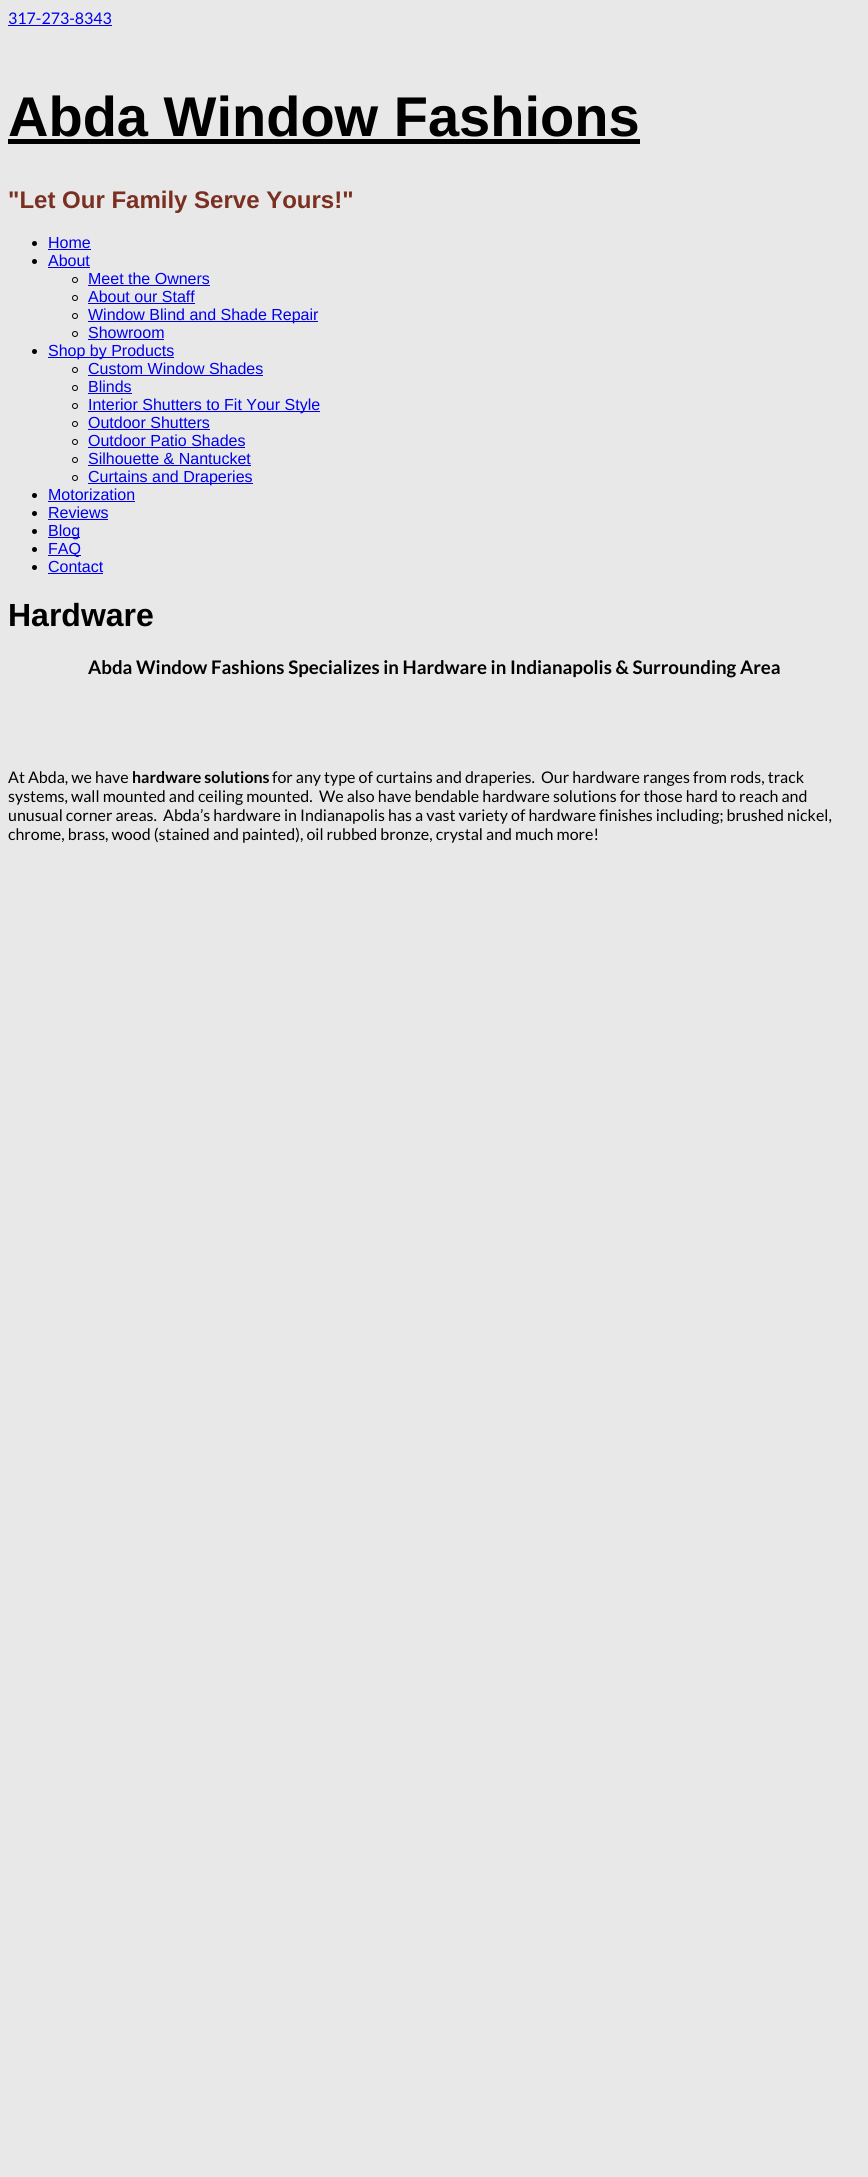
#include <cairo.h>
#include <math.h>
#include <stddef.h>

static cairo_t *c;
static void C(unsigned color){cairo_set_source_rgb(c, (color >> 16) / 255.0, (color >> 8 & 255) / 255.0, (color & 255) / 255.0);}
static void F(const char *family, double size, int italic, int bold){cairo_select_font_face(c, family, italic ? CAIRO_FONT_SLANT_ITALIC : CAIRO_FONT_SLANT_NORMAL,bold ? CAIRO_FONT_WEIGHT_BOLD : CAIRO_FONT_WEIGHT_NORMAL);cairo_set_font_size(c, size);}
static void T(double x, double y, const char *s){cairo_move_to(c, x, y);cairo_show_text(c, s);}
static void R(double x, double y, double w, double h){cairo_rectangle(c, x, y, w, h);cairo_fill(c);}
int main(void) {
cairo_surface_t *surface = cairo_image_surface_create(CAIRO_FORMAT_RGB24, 868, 2177);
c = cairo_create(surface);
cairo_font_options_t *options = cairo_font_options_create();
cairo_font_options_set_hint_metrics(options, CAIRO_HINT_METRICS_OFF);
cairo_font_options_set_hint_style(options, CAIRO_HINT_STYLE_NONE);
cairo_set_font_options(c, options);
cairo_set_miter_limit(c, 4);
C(0xe8e8e8);
cairo_paint(c);
F("Lato",16,0,0);
C(0x0000ee);
T(8,24,"317-273-8343");
R(8,25,104,1);
F("Arimo",56,0,1);
C(0x000000);
T(8,136,"Abda Window Fashions");
R(8,139,632,5);
F("Arimo",24,0,1);
C(0x7a2f21);
T(8,208,"\"Let Our Family Serve Yours!\"");
C(0x000000);
cairo_new_path(c);
cairo_arc(c,34.5,243.5,2.5,0,2 * M_PI);
cairo_fill(c);
F("Arimo",16,0,0);
C(0x0000ee);
T(48,248,"Home");
R(48,249,43,1);
C(0x000000);
cairo_new_path(c);
cairo_arc(c,34.5,261.5,2.5,0,2 * M_PI);
cairo_fill(c);
C(0x0000ee);
T(48,266,"About");
R(48,267,42,1);
cairo_new_path(c);
cairo_arc(c,75,280,2.5,0,2 * M_PI);
C(0x000000);
cairo_set_line_width(c,1);
cairo_stroke(c);
C(0x0000ee);
T(88,284,"Meet the Owners");
R(88,285,122,1);
cairo_new_path(c);
cairo_arc(c,75,298,2.5,0,2 * M_PI);
C(0x000000);
cairo_stroke(c);
C(0x0000ee);
T(88,302,"About our Staff");
R(88,303,107,1);
cairo_new_path(c);
cairo_arc(c,75,316,2.5,0,2 * M_PI);
C(0x000000);
cairo_stroke(c);
C(0x0000ee);
R(88,321,230,1);
T(88,320,"Window Blind and Shade Repair");
cairo_new_path(c);
cairo_arc(c,75,334,2.5,0,2 * M_PI);
C(0x000000);
cairo_stroke(c);
C(0x0000ee);
T(88,338,"Showroom");
R(88,339,76,1);
C(0x000000);
cairo_new_path(c);
cairo_arc(c,34.5,351.5,2.5,0,2 * M_PI);
cairo_fill(c);
C(0x0000ee);
R(48,357,126,1);
T(48,356,"Shop by Products");
cairo_new_path(c);
cairo_arc(c,75,370,2.5,0,2 * M_PI);
C(0x000000);
cairo_stroke(c);
C(0x0000ee);
T(88,374,"Custom Window Shades");
R(88,375,175,1);
cairo_new_path(c);
cairo_arc(c,75,388,2.5,0,2 * M_PI);
C(0x000000);
cairo_stroke(c);
C(0x0000ee);
T(88,392,"Blinds");
R(88,393,44,1);
cairo_new_path(c);
cairo_arc(c,75,406,2.5,0,2 * M_PI);
C(0x000000);
cairo_stroke(c);
C(0x0000ee);
R(88,411,232,1);
T(88,410,"Interior Shutters to Fit Your Style");
cairo_new_path(c);
cairo_arc(c,75,424,2.5,0,2 * M_PI);
C(0x000000);
cairo_stroke(c);
C(0x0000ee);
T(88,428,"Outdoor Shutters");
R(88,429,122,1);
cairo_new_path(c);
cairo_arc(c,75,442,2.5,0,2 * M_PI);
C(0x000000);
cairo_stroke(c);
C(0x0000ee);
T(88,446,"Outdoor Patio Shades");
R(88,447,157,1);
cairo_new_path(c);
cairo_arc(c,75,460,2.5,0,2 * M_PI);
C(0x000000);
cairo_stroke(c);
C(0x0000ee);
T(88,464,"Silhouette & Nantucket");
R(88,465,163,1);
cairo_new_path(c);
cairo_arc(c,75,478,2.5,0,2 * M_PI);
C(0x000000);
cairo_stroke(c);
C(0x0000ee);
R(88,483,165,1);
T(88,482,"Curtains and Draperies");
C(0x000000);
cairo_new_path(c);
cairo_arc(c,34.5,495.5,2.5,0,2 * M_PI);
cairo_fill(c);
C(0x0000ee);
T(48,500,"Motorization");
R(48,501,87,1);
C(0x000000);
cairo_new_path(c);
cairo_arc(c,34.5,513.5,2.5,0,2 * M_PI);
cairo_fill(c);
C(0x0000ee);
T(48,518,"Reviews");
R(48,519,60,1);
C(0x000000);
cairo_new_path(c);
cairo_arc(c,34.5,531.5,2.5,0,2 * M_PI);
cairo_fill(c);
C(0x0000ee);
R(48,537,32,1);
T(48,536,"Blog");
C(0x000000);
cairo_new_path(c);
cairo_arc(c,34.5,549.5,2.5,0,2 * M_PI);
cairo_fill(c);
C(0x0000ee);
R(48,555,33,1);
T(48,554,"FAQ");
C(0x000000);
cairo_new_path(c);
cairo_arc(c,34.5,567.5,2.5,0,2 * M_PI);
cairo_fill(c);
C(0x0000ee);
T(48,572,"Contact");
R(48,573,55,1);
F("Arimo",32,0,1);
C(0x000000);
T(8,626,"Hardware");
F("Lato",18.7,0,1);
T(88,674,"Abda Window Fashions Specializes in Hardware in Indianapolis & Surrounding Area");
F("Lato",16,0,0);
T(8,783,"At Abda, we have");
F("Lato",16,0,1);
T(132,783,"hardware solutions");
F("Lato",16,0,0);
T(272,783,"for any type of curtains and draperies.  Our hardware ranges from rods, track");
T(8,802,"systems, wall mounted and ceiling mounted.  We also have bendable hardware solutions for those hard to reach and");
T(8,821,"unusual corner areas.  Abda’s hardware in Indianapolis has a vast variety of hardware finishes including; brushed nickel,");
T(8,840,"chrome, brass, wood (stained and painted), oil rubbed bronze, crystal and much more!");
cairo_surface_write_to_png(surface, "o.png");
cairo_font_options_destroy(options);
cairo_destroy(c);
cairo_surface_destroy(surface);
return 0;
}
